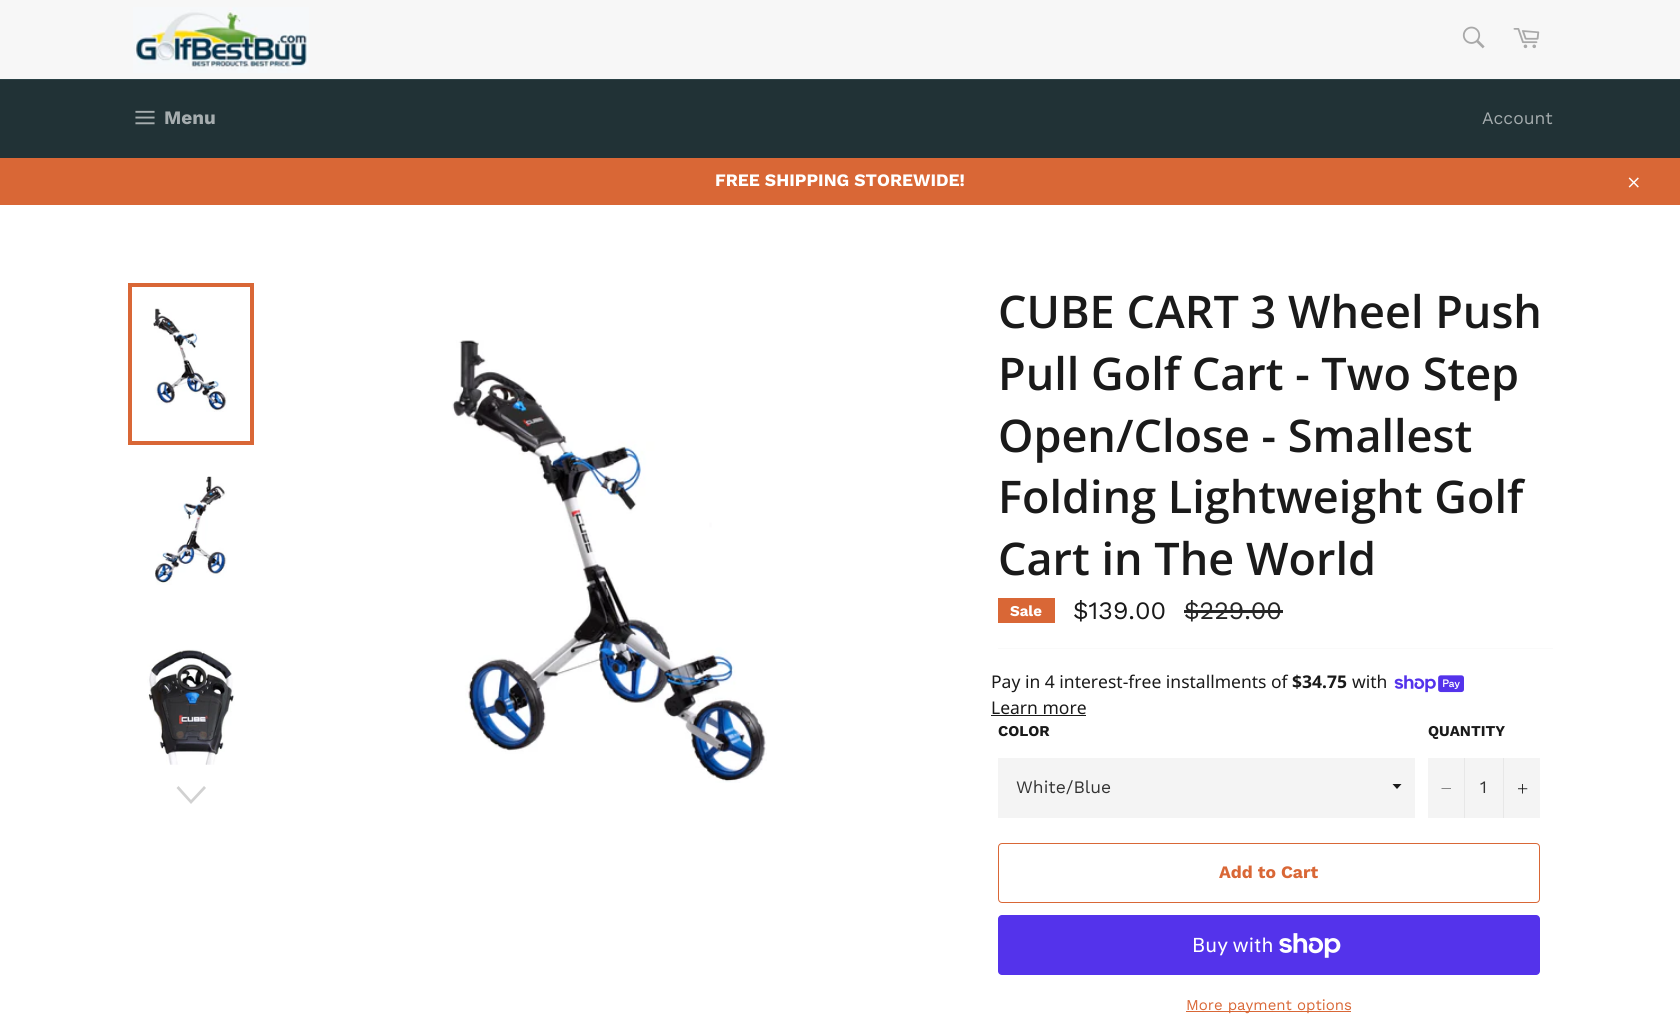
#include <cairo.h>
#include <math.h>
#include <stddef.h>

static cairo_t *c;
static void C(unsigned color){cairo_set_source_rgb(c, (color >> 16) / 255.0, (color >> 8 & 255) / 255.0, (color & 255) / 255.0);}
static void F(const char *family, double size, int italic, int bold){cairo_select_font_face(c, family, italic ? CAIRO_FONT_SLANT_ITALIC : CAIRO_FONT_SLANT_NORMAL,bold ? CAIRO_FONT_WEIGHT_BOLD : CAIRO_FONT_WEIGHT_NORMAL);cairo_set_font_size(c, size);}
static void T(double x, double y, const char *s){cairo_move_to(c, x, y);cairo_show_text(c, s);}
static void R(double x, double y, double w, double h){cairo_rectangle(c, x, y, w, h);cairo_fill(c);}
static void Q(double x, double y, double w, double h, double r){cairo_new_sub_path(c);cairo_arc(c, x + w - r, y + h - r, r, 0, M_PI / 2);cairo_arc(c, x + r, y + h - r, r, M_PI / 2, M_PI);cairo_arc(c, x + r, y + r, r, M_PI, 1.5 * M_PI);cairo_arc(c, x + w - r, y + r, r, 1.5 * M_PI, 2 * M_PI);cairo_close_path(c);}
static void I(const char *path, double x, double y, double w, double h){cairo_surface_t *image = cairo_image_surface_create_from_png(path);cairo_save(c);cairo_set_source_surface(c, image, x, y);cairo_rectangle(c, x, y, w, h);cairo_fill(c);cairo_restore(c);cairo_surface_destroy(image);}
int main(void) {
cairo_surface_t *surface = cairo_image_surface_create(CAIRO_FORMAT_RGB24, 1680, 1033);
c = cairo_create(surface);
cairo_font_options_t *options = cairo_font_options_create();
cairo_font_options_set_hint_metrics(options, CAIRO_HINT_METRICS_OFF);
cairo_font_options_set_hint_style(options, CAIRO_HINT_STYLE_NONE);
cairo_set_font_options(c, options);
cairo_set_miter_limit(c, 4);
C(0xf7f7f7);
cairo_paint(c);
I("1.png",133,7,176,66);
I("2.png",1462,26,23,23);
I("3.png",1513,28,27,21);
C(0x213236);
R(0,80,1680,78);
C(0x2b4146);
R(0,79,1680,1);
I("4.png",135,110,20,15);
F("Work Sans",19,0,1);
C(0xa6adaf);
T(164,124,"Menu");
F("Work Sans",17.5,0,0);
T(1482,124,"Account");
C(0xd96736);
R(0,158,1680,47);
F("Work Sans",17.5,0,1);
C(0xffffff);
T(715,186,"FREE SHIPPING STOREWIDE!");
I("5.png",1628,177,11,11);
R(0,205,1680,828);
I("6.png",153,308,74,104);
cairo_rectangle(c,130,285,122,158);
C(0xd96736);
cairo_set_line_width(c,4);
cairo_stroke(c);
I("7.png",155,476,72,109);
I("8.png",147,649,88,116);
C(0xd1d1d1);
cairo_new_path(c);
cairo_move_to(c,204,786);
cairo_line_to(c,206,788);
cairo_line_to(c,191,804);
cairo_line_to(c,176.5,788);
cairo_line_to(c,178.5,786);
cairo_line_to(c,191,800);
cairo_close_path(c);
cairo_fill(c);
I("9.png",452,340,315,443);
F("Open Sans SemiBold",45,0,0);
C(0x1a1a1a);
T(998,328,"CUBE CART 3 Wheel Push");
T(998,390,"Pull Golf Cart - Two Step");
T(998,452,"Open/Close - Smallest");
T(998,513,"Folding Lightweight Golf");
T(998,575,"Cart in The World");
C(0xd96736);
R(998,598,57,25);
F("Work Sans",15,0,1);
C(0xffffff);
T(1010,616,"Sale");
F("Work Sans",25,0,0);
C(0x1a1a1a);
T(1073,619,"$139.00");
C(0x272727);
T(1184,619,"$229.00");
R(1184,610,99,3);
C(0xfafafa);
R(998,648,555,1);
F("Noto Sans",17.5,0,0);
C(0x1a1a1a);
T(991,688,"Pay in 4 interest-free installments of");
F("Noto Sans",17.5,0,1);
T(1292,688,"$34.75");
F("Noto Sans",17.5,0,0);
T(1352,688,"with");
I("10.png",1394,675,70,18);
T(991,714,"Learn more");
R(991,715,95,1);
F("Work Sans",15,0,1);
T(998,736,"COLOR");
C(0xf4f4f4);
R(998,758,417,60);
C(0x1a1a1a);
cairo_new_path(c);
cairo_move_to(c,1392.5,784);
cairo_line_to(c,1397,789);
cairo_line_to(c,1401.5,784);
cairo_close_path(c);
cairo_fill(c);
F("Work Sans",17.5,0,0);
C(0x333333);
T(1016,793,"White/Blue");
F("Work Sans",15,0,1);
C(0x1a1a1a);
T(1428,736,"QUANTITY");
C(0xf4f4f4);
R(1428,758,112,60);
C(0xe7e7e7);
R(1464,758,1,60);
C(0x1a1a1a);
cairo_set_fill_rule(c,CAIRO_FILL_RULE_EVEN_ODD);
cairo_new_path(c);
cairo_move_to(c,1451,788.5);
cairo_line_to(c,1451,789);
cairo_line_to(c,1441.5,789);
cairo_line_to(c,1441.5,788.5);
cairo_close_path(c);
cairo_fill(c);
F("Work Sans",17.5,0,0);
C(0x333333);
T(1480,793,"1");
C(0xe7e7e7);
R(1503,758,1,60);
I("11.png",1518,784,10,10);
Q(998.5,843.5,541,59,3.5);
C(0xd96736);
cairo_set_line_width(c,1);
cairo_stroke(c);
F("Work Sans",17.5,0,1);
T(1219,878,"Add to Cart");
C(0x5433eb);
Q(998,915,542,60,4);
cairo_fill(c);
F("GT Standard",20,0,0);
C(0xffffff);
T(1192,952,"Buy with");
I("12.png",1279,933,62,25);
C(0xd96736);
R(1186,1011,165,1);
F("Work Sans",15,0,0);
T(1186,1010,"More payment options");
cairo_surface_write_to_png(surface, "o.png");
cairo_font_options_destroy(options);
cairo_destroy(c);
cairo_surface_destroy(surface);
return 0;
}
